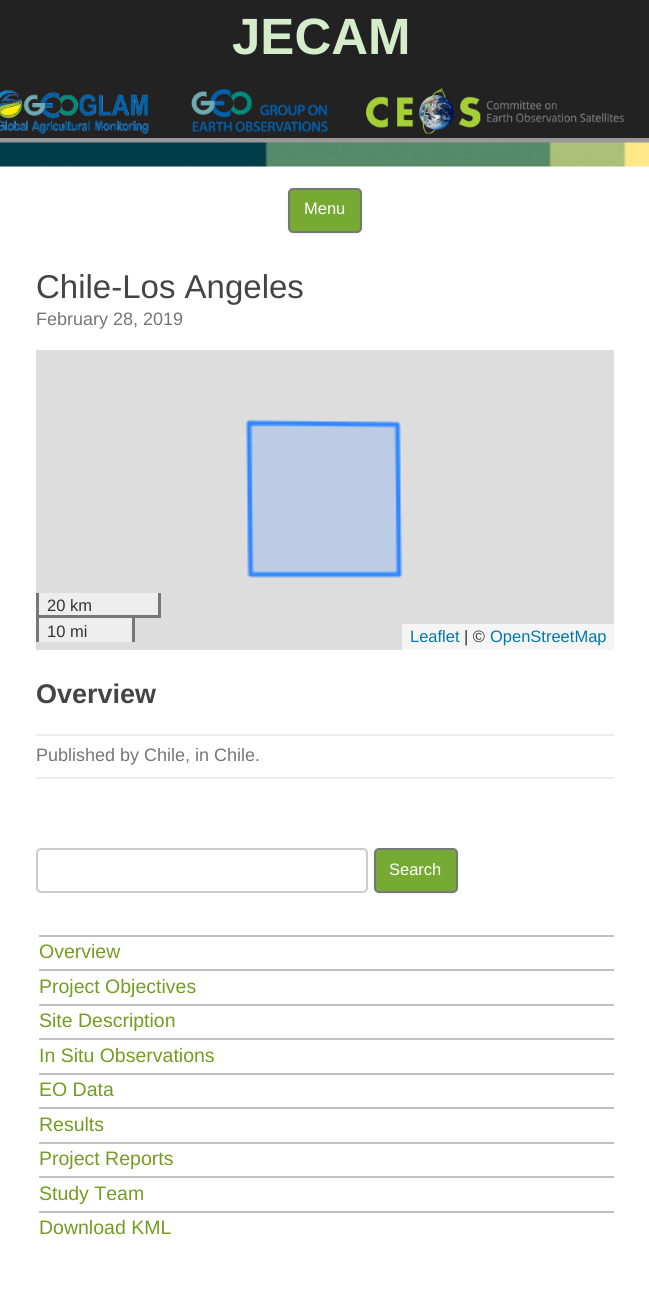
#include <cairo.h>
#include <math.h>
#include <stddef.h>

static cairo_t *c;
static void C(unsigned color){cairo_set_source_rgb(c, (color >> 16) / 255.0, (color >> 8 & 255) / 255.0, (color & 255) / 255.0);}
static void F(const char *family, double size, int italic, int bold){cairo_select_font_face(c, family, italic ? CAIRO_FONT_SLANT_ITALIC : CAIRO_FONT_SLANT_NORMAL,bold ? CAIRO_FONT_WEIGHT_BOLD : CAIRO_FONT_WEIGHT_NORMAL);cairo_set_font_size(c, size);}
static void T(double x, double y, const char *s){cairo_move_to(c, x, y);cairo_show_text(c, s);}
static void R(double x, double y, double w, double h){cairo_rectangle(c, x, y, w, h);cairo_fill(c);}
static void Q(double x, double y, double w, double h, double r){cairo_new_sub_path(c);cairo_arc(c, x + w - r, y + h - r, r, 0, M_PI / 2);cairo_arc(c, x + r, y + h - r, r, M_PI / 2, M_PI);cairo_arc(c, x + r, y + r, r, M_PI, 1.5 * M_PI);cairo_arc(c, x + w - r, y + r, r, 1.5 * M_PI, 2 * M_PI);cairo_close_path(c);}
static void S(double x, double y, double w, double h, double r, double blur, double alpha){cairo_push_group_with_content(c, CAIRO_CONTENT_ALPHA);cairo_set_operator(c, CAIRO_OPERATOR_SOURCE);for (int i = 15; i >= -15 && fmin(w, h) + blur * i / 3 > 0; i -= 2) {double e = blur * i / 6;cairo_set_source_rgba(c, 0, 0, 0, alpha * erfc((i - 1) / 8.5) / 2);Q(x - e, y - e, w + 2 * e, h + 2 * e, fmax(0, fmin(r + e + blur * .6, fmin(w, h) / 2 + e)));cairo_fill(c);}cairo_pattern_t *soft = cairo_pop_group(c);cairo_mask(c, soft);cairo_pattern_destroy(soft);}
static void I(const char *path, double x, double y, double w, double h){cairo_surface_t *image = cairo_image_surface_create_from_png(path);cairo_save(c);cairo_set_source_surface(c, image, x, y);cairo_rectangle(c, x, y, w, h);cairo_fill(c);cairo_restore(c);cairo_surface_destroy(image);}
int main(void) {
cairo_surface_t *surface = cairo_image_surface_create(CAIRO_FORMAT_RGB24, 649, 1302);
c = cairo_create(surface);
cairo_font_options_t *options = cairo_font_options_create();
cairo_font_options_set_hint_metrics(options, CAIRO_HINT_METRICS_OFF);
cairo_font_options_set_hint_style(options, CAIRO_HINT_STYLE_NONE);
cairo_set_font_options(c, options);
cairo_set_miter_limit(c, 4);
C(0xffffff);
cairo_paint(c);
I("1.png",0,166,649,1136);
C(0x222222);
R(0,0,649,138);
C(0x999999);
R(0,138,649,5);
F("Liberation Sans",51,0,1);
C(0xd5edcb);
T(232,54,"JECAM");
I("2.png",0,90,149,44);
I("3.png",191,88,137,44);
I("4.png",366,88,258,46);
I("5.png",0,142,649,25);
C(0x404040);
S(288,189,74,45,5,1.5,.1);
C(0x77aa33);
Q(289,189,72,43,4);
cairo_fill_preserve(c);
C(0x777777);
cairo_stroke(c);
F("Liberation Sans",16.5,0,0);
C(0xffffff);
T(304,214,"Menu");
F("Liberation Sans",33,0,0);
C(0x444444);
T(36,298,"Chile-Los Angeles");
F("Liberation Sans",18,0,0);
C(0x757575);
T(36,325,"February 28, 2019");
C(0xdddddd);
R(36,350,578,300);
I("6.png",245,419,158,159);
C(0xeeeeee);
R(39,593,119,22);
C(0x777777);
R(158,593,3,25);
R(135,615,26,3);
R(36,593,3,25);
F("Liberation Sans",16.5,0,0);
C(0x333333);
T(47,611,"20 km");
cairo_set_source_rgba(c,1,1,1,0.5);
R(39,618,93,24);
C(0x777777);
R(36,615,99,3);
R(132,615,3,27);
R(36,615,3,27);
C(0x333333);
T(47,637,"10 mi");
C(0xf5f5f5);
R(402,624,212,26);
C(0x0078a8);
T(410,642,"Leaflet");
C(0x333333);
T(464,642,"| ©");
C(0x0078a8);
T(490,642,"OpenStreetMap");
F("Liberation Sans",27,0,1);
C(0x444444);
T(36,703,"Overview");
C(0xededed);
R(36,734,578,2);
R(36,777,578,2);
F("Liberation Sans",18,0,0);
C(0x757575);
T(36,761,"Published by Chile, in Chile.");
Q(37,849,330,43,4);
C(0xcccccc);
cairo_stroke(c);
C(0x404040);
S(374,849,84,45,5,1.5,.1);
C(0x77aa33);
Q(375,849,82,43,4);
cairo_fill_preserve(c);
C(0x777777);
cairo_stroke(c);
F("Liberation Sans",16.5,0,0);
C(0xffffff);
T(389,875,"Search");
C(0xc0c0c0);
R(39,935,575,2);
F("Liberation Sans",19.5,0,0);
C(0x759b21);
T(39,958,"Overview");
C(0xc0c0c0);
R(39,969,575,2);
C(0x759b21);
T(39,993,"Project Objectives");
C(0xc0c0c0);
R(39,1004,575,2);
C(0x759b21);
T(39,1027,"Site Description");
C(0xc0c0c0);
R(39,1038,575,2);
C(0x759b21);
T(39,1062,"In Situ Observations");
C(0xc0c0c0);
R(39,1073,575,2);
C(0x759b21);
T(39,1096,"EO Data");
C(0xc0c0c0);
R(39,1107,575,2);
C(0x759b21);
T(39,1131,"Results");
C(0xc0c0c0);
R(39,1142,575,2);
C(0x759b21);
T(39,1165,"Project Reports");
C(0xc0c0c0);
R(39,1176,575,2);
C(0x759b21);
T(39,1200,"Study Team");
C(0xc0c0c0);
R(39,1211,575,2);
C(0x759b21);
T(39,1234,"Download KML");
cairo_surface_write_to_png(surface, "o.png");
cairo_font_options_destroy(options);
cairo_destroy(c);
cairo_surface_destroy(surface);
return 0;
}
